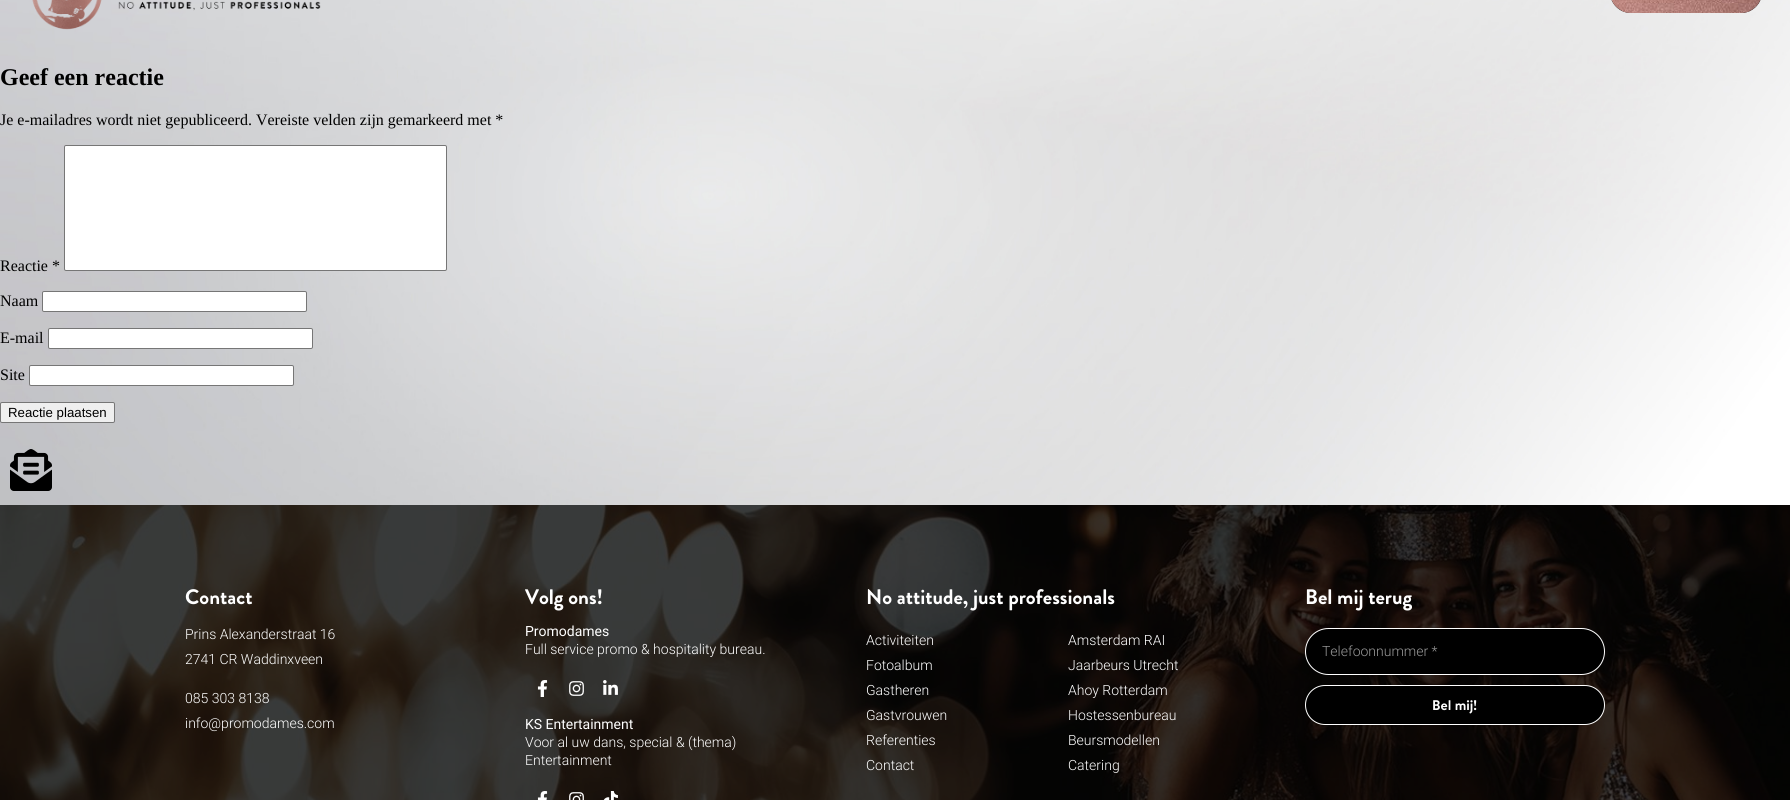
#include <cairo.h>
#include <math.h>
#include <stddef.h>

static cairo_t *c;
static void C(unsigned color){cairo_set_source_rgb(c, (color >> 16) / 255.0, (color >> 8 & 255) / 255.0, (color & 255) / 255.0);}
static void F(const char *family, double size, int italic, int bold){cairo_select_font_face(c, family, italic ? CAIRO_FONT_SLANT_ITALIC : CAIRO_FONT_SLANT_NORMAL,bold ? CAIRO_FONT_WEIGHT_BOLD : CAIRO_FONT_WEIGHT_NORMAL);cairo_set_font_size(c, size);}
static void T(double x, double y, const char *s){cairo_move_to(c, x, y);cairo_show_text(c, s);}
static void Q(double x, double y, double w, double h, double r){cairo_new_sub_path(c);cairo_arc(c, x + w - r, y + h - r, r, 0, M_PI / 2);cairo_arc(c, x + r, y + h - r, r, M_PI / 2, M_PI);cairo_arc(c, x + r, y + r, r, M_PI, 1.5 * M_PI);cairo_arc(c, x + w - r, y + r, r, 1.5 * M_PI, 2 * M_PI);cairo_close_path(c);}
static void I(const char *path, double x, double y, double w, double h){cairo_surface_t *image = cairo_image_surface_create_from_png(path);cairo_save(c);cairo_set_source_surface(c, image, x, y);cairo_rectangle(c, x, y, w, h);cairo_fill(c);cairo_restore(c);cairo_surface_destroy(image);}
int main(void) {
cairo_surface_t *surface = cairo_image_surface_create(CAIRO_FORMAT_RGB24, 1790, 800);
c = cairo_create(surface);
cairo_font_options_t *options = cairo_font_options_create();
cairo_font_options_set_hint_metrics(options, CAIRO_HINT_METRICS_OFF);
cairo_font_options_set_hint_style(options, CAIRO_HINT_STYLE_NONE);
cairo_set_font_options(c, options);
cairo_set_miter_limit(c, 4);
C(0xffffff);
cairo_paint(c);
I("1.png",0,0,1790,505);
I("2.png",32,0,289,30);
C(0x000000);
Q(1610,-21,152,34,21);
cairo_fill(c);
I("3.png",1611,0,150,13);
F("Liberation Serif",24,0,1);
T(0,85,"Geef een reactie");
F("Liberation Serif",16,0,0);
T(0,125,"Je e-mailadres wordt niet gepubliceerd. Vereiste velden zijn gemarkeerd met *");
T(0,271,"Reactie *");
C(0xffffff);
Q(64.5,145.5,382,125,1.5);
cairo_fill_preserve(c);
C(0x767676);
cairo_set_line_width(c,1);
cairo_stroke(c);
C(0x000000);
T(0,306,"Naam");
C(0xffffff);
Q(42.5,291.5,264,20,1.5);
cairo_fill_preserve(c);
C(0x767676);
cairo_stroke(c);
C(0x000000);
T(0,343,"E-mail");
C(0xffffff);
Q(48.5,328.5,264,20,1.5);
cairo_fill_preserve(c);
C(0x767676);
cairo_stroke(c);
C(0x000000);
T(0,380,"Site");
C(0xffffff);
Q(29.5,365.5,264,20,1.5);
cairo_fill_preserve(c);
C(0x767676);
cairo_stroke(c);
C(0xefefef);
Q(.5,402.5,114,20,1.5);
cairo_fill_preserve(c);
C(0x767676);
cairo_stroke(c);
F("Liberation Sans",13.25,0,0);
C(0x000000);
T(8,417,"Reactie plaatsen");
I("4.png",10,449,42,42);
I("5.png",0,505,1790,295);
F("Brandon Grotesque",21,0,1);
C(0xffffff);
T(185,604,"Contact");
F("Roboto Light",14,0,0);
T(185,639,"Prins Alexanderstraat 16");
T(185,664,"2741 CR Waddinxveen");
T(185,703,"085 303 8138");
T(185,728,"info@promodames.com");
F("Brandon Grotesque",21,0,1);
T(525,604,"Volg ons!");
F("Roboto",14,0,0);
T(525,636,"Promodames");
F("Roboto Light",14,0,0);
T(525,654,"Full service promo & hospitality bureau.");
I("6.png",537,680,11,17);
I("7.png",569,681,15,15);
I("8.png",603,680,15,15);
F("Roboto",14,0,0);
T(525,729,"KS Entertainment");
F("Roboto Light",14,0,0);
T(525,747,"Voor al uw dans, special & (thema)");
T(525,765,"Entertainment");
I("9.png",537,791,11,9);
I("10.png",569,792,15,8);
I("11.png",603,791,15,9);
F("Brandon Grotesque",21,0,1);
T(866,604,"No attitude, just professionals");
F("Roboto Light",14,0,0);
T(866,645,"Activiteiten");
T(866,670,"Fotoalbum");
T(866,695,"Gastheren");
T(866,720,"Gastvrouwen");
T(866,745,"Referenties");
T(866,770,"Contact");
T(1068,645,"Amsterdam RAI");
T(1068,670,"Jaarbeurs Utrecht");
T(1068,695,"Ahoy Rotterdam");
T(1068,720,"Hostessenbureau");
T(1068,745,"Beursmodellen");
T(1068,770,"Catering");
F("Brandon Grotesque",21,0,1);
T(1305,604,"Bel mij terug");
C(0x000000);
Q(1305.5,628.5,299,46,23);
cairo_fill_preserve(c);
C(0xffffff);
cairo_stroke(c);
F("Roboto Light",14,0,0);
C(0x999999);
T(1322,656,"Telefoonnummer *");
C(0x000000);
Q(1305.5,685.5,299,39,19.5);
cairo_fill_preserve(c);
C(0xffffff);
cairo_stroke(c);
F("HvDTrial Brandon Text",14,0,1);
T(1432,710,"Bel mij!");
cairo_surface_write_to_png(surface, "o.png");
cairo_font_options_destroy(options);
cairo_destroy(c);
cairo_surface_destroy(surface);
return 0;
}
